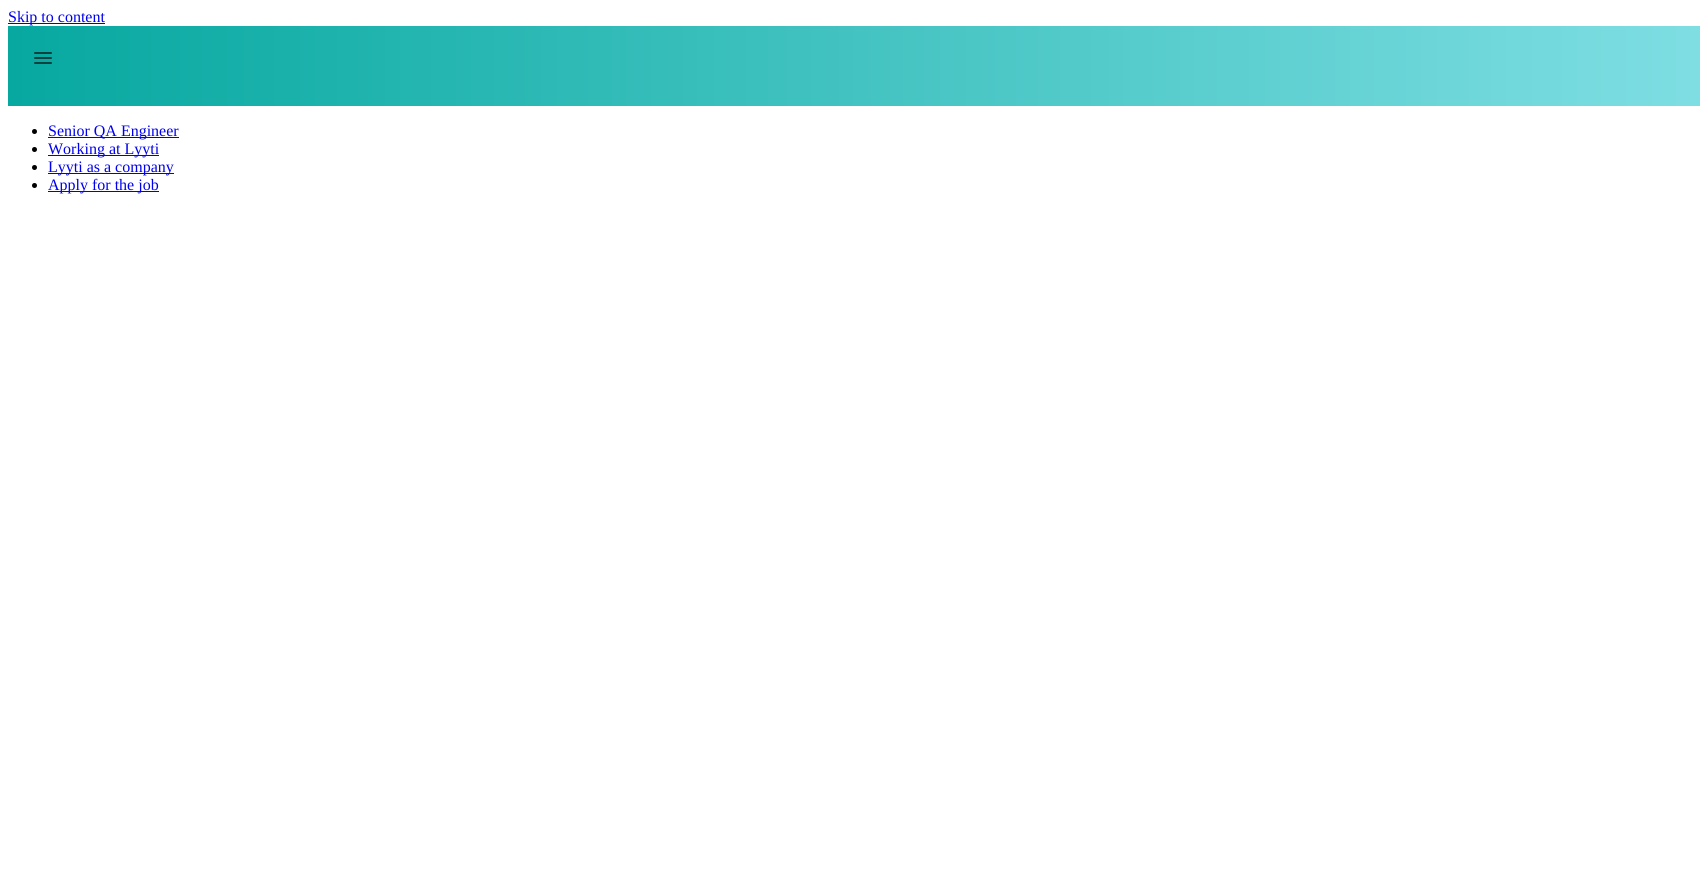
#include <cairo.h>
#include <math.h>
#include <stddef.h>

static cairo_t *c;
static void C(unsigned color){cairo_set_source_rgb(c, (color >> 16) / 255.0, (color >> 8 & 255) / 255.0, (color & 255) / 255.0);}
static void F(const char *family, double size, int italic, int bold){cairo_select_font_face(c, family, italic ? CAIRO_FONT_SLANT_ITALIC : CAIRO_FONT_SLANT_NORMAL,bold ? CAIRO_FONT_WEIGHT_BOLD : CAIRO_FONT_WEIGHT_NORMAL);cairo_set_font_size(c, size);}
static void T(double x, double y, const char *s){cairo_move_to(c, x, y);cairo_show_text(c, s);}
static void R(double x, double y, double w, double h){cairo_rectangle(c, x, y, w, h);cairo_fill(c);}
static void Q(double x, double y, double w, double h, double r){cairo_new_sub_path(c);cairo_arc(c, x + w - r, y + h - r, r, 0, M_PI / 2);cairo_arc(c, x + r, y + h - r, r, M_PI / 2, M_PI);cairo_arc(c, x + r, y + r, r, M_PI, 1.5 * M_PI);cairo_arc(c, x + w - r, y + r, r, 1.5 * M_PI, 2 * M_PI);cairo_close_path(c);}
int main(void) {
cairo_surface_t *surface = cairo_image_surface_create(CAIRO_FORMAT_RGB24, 1700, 884);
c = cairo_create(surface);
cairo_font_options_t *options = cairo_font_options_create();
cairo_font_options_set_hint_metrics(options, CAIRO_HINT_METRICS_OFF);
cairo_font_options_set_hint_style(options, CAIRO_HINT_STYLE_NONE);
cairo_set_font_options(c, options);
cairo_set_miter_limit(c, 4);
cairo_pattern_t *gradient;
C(0xffffff);
cairo_paint(c);
C(0x0000ee);
R(8,23,97,1);
F("Liberation Serif",16,0,0);
T(8,22,"Skip to content");
gradient = cairo_pattern_create_linear(8,66,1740,66);
cairo_pattern_add_color_stop_rgba(gradient,0,0.027,0.659,0.627,1);
cairo_pattern_add_color_stop_rgba(gradient,1,0.506,0.875,0.894,1);
cairo_set_source(c,gradient);
cairo_pattern_destroy(gradient);
R(8,26,1692,80);
C(0x044340);
Q(34,52,18,2,1);
cairo_fill(c);
Q(34,57,18,2,1);
cairo_fill(c);
Q(34,62,18,2,1);
cairo_fill(c);
C(0x000000);
cairo_arc(c,34.5,131.5,2.5,0,2 * M_PI);
cairo_fill(c);
C(0x0000ee);
R(48,137,131,1);
T(48,136,"Senior QA Engineer");
C(0x000000);
cairo_new_path(c);
cairo_arc(c,34.5,149.5,2.5,0,2 * M_PI);
cairo_fill(c);
C(0x0000ee);
R(48,155,111,1);
T(48,154,"Working at Lyyti");
C(0x000000);
cairo_new_path(c);
cairo_arc(c,34.5,167.5,2.5,0,2 * M_PI);
cairo_fill(c);
C(0x0000ee);
R(48,173,126,1);
T(48,172,"Lyyti as a company");
C(0x000000);
cairo_new_path(c);
cairo_arc(c,34.5,185.5,2.5,0,2 * M_PI);
cairo_fill(c);
C(0x0000ee);
R(48,191,111,1);
T(48,190,"Apply for the job");
cairo_surface_write_to_png(surface, "o.png");
cairo_font_options_destroy(options);
cairo_destroy(c);
cairo_surface_destroy(surface);
return 0;
}
